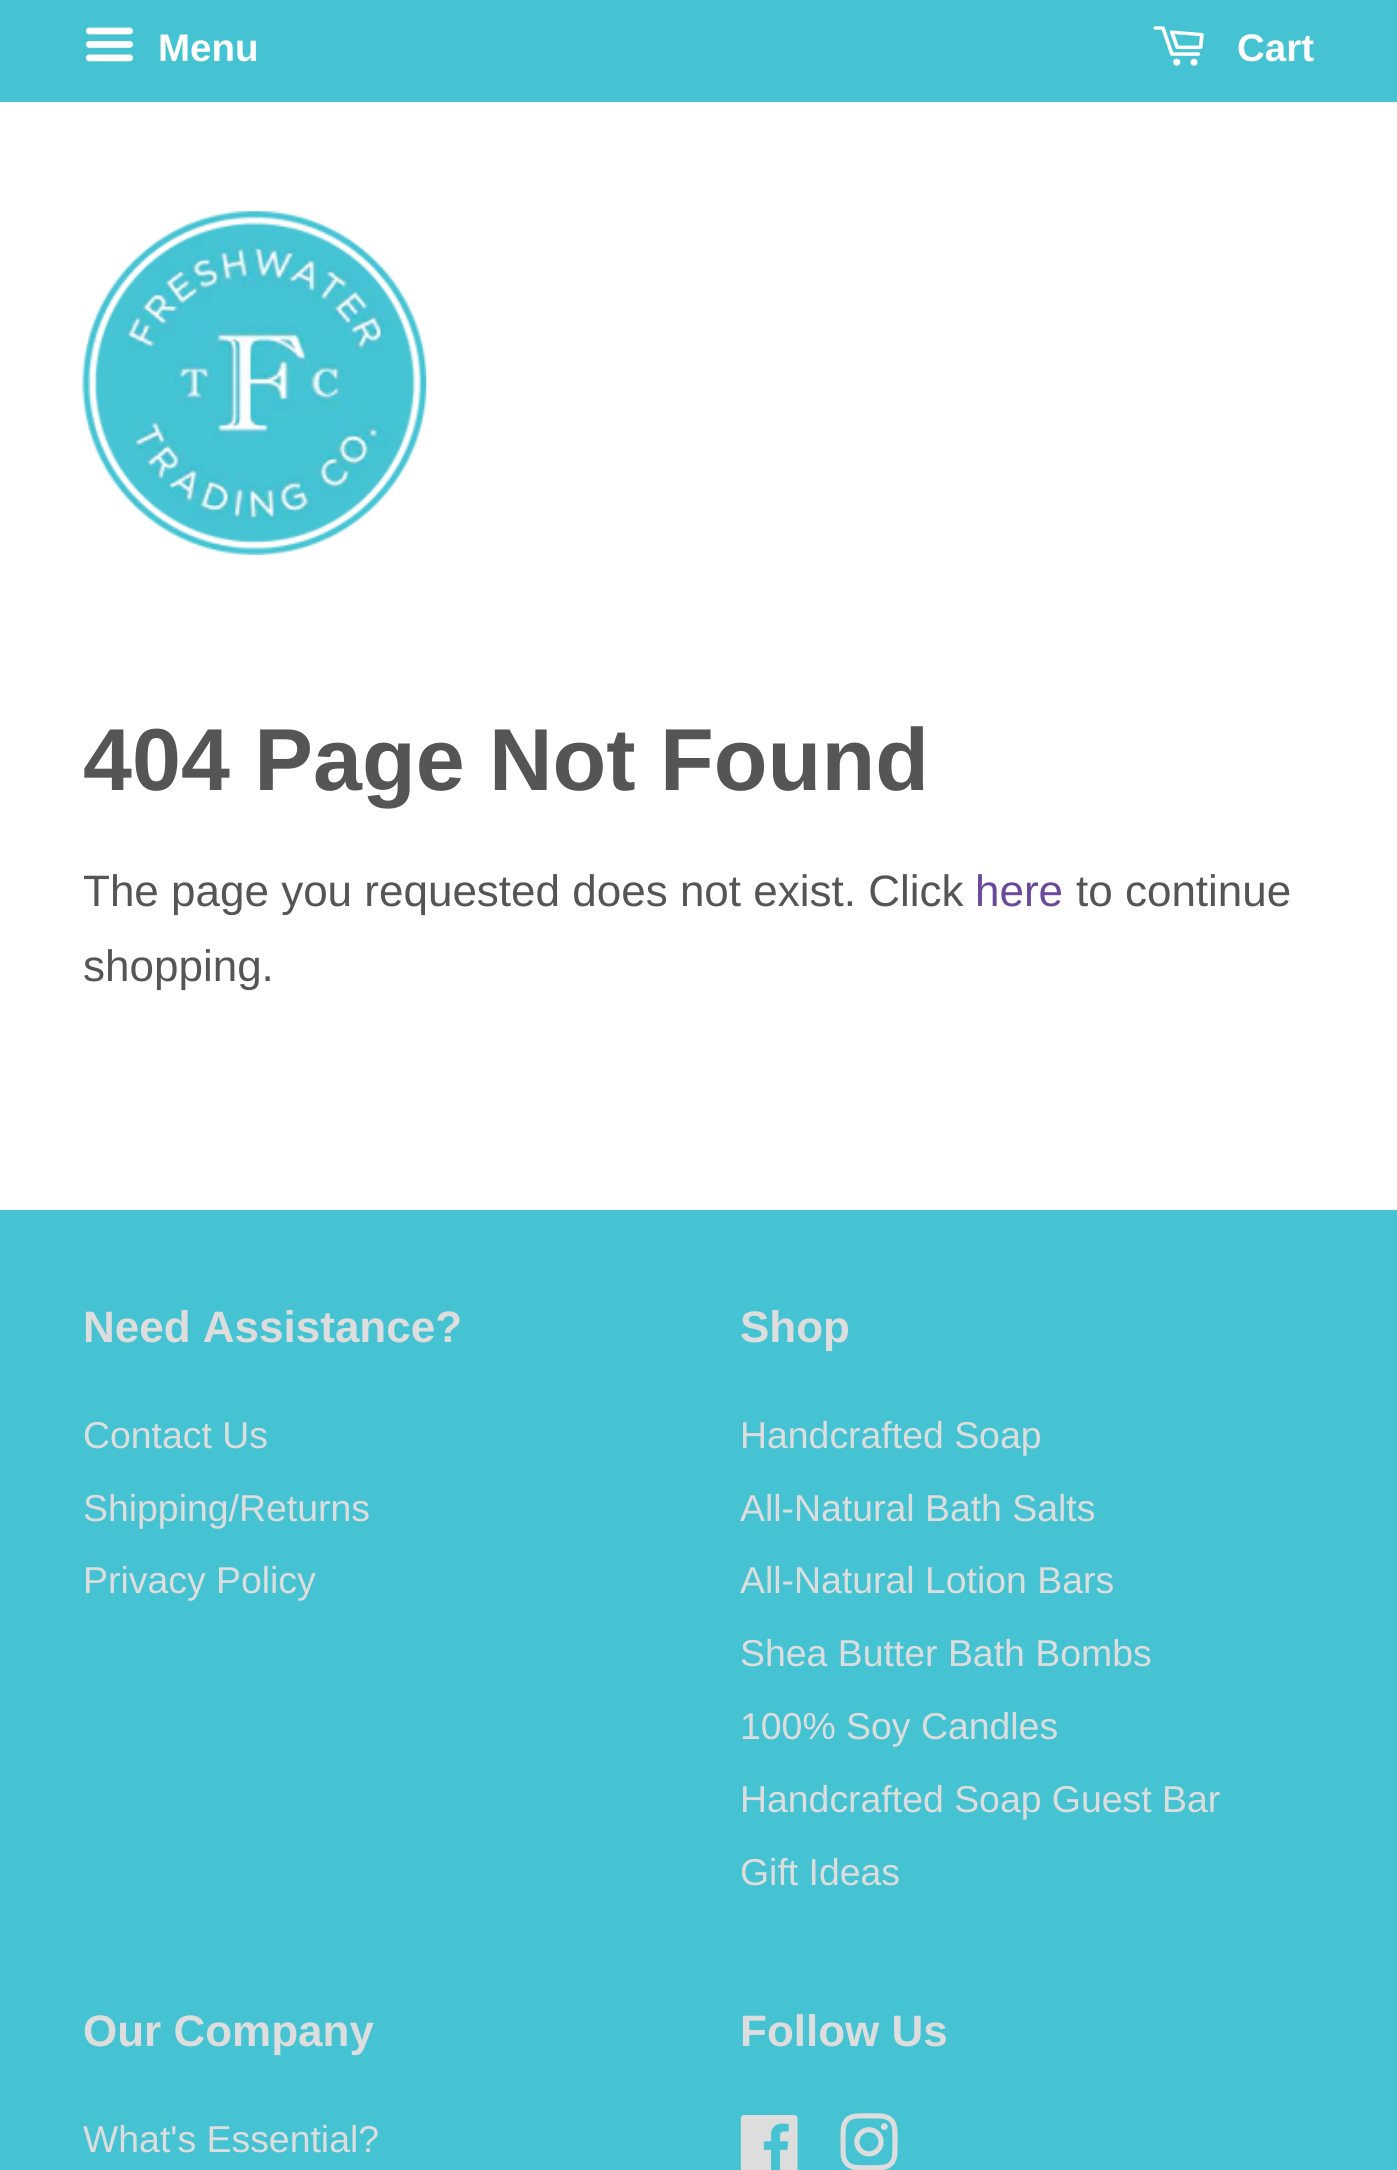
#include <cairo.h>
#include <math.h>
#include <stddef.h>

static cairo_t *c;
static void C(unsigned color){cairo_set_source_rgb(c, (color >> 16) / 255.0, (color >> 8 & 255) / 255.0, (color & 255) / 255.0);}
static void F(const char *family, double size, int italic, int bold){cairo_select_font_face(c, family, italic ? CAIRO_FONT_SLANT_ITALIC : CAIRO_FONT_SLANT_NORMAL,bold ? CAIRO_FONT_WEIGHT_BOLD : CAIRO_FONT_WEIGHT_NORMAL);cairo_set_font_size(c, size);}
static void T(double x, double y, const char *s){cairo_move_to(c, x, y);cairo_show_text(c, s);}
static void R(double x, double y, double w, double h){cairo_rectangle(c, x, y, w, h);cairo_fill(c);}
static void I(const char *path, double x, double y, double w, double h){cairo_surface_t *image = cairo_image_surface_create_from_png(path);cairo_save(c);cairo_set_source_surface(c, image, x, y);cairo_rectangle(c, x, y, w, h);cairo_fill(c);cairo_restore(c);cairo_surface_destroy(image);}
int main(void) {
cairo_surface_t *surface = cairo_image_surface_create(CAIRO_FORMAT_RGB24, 1397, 2170);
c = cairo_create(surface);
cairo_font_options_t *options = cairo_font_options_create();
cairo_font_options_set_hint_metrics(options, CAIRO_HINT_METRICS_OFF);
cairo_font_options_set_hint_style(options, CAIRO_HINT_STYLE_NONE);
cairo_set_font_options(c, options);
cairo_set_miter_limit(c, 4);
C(0xffffff);
cairo_paint(c);
C(0x45c3d2);
R(0,0,1397,102);
I("1.png",85,27,48,35);
F("Liberation Sans",38.5,0,1);
C(0xffffff);
T(158,61,"Menu");
I("2.png",1153,26,51,40);
T(1237,61,"Cart");
I("3.png",82,211,345,344);
F("Liberation Sans",88,0,1);
C(0x555555);
T(83,790,"404 Page Not Found");
F("Liberation Sans",44,0,0);
T(83,906,"The page you requested does not exist. Click");
C(0x6b489c);
T(975,906,"here");
C(0x555555);
T(1076,906,"to continue");
T(83,981,"shopping.");
C(0x45c3d2);
R(0,1210,1397,960);
F("Liberation Sans",44,0,1);
C(0xdddddd);
T(83,1342,"Need Assistance?");
F("Liberation Sans",37.4,0,0);
T(83,1448,"Contact Us");
T(83,1521,"Shipping/Returns");
T(83,1593,"Privacy Policy");
F("Liberation Sans",44,0,1);
T(740,1342,"Shop");
F("Liberation Sans",37.4,0,0);
T(740,1448,"Handcrafted Soap");
T(740,1521,"All-Natural Bath Salts");
T(740,1593,"All-Natural Lotion Bars");
T(740,1666,"Shea Butter Bath Bombs");
T(740,1739,"100% Soy Candles");
T(740,1812,"Handcrafted Soap Guest Bar");
T(740,1885,"Gift Ideas");
F("Liberation Sans",44,0,1);
T(83,2046,"Our Company");
F("Liberation Sans",37.4,0,0);
T(83,2152,"What's Essential?");
F("Liberation Sans",44,0,1);
T(740,2046,"Follow Us");
I("4.png",740,2115,58,55);
I("5.png",840,2113,58,57);
cairo_surface_write_to_png(surface, "o.png");
cairo_font_options_destroy(options);
cairo_destroy(c);
cairo_surface_destroy(surface);
return 0;
}
